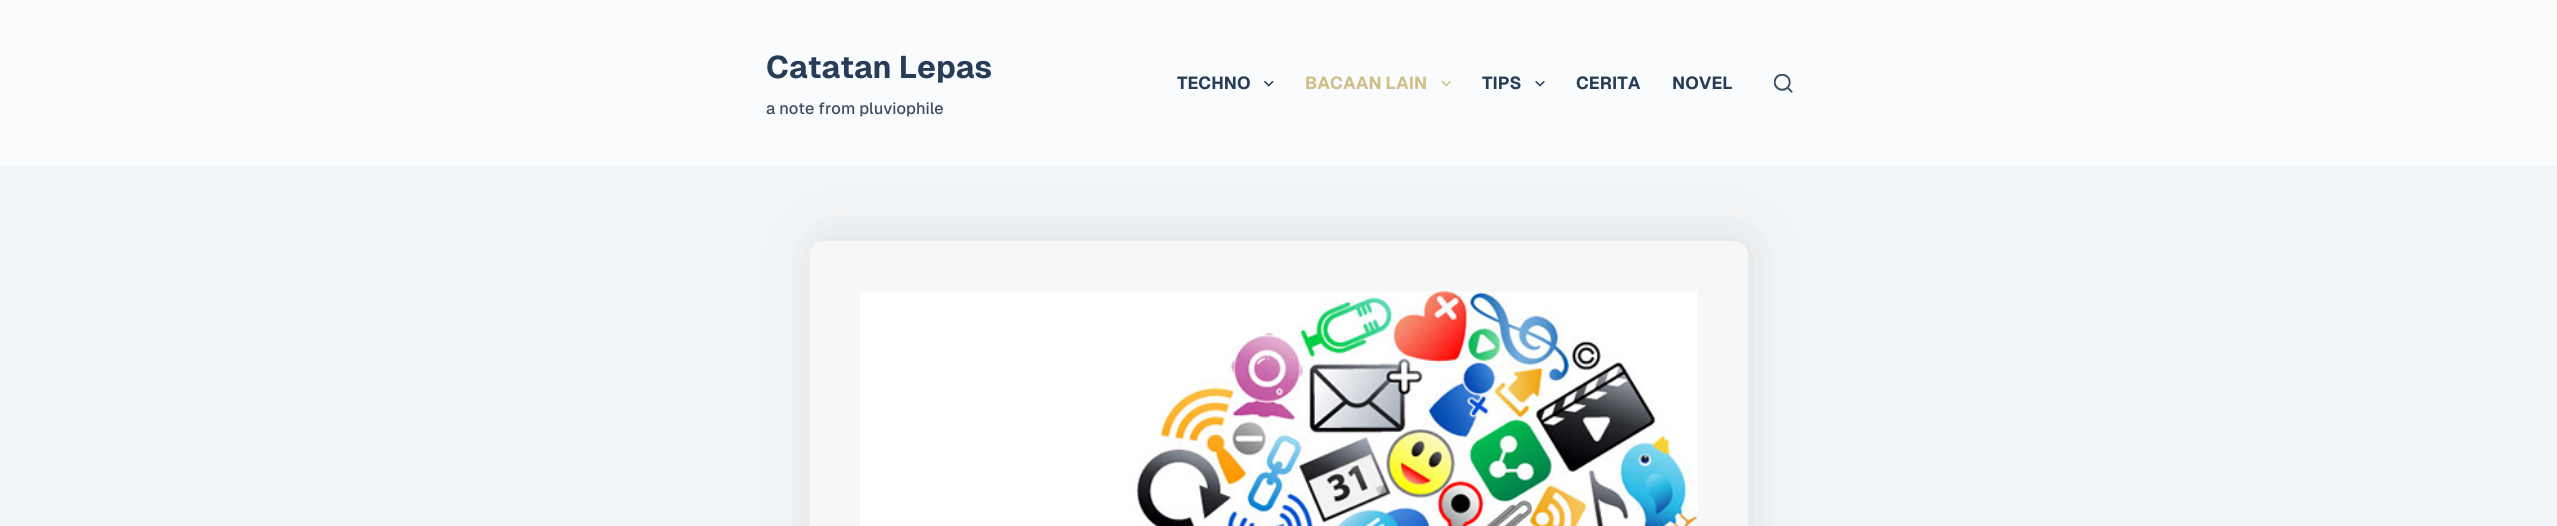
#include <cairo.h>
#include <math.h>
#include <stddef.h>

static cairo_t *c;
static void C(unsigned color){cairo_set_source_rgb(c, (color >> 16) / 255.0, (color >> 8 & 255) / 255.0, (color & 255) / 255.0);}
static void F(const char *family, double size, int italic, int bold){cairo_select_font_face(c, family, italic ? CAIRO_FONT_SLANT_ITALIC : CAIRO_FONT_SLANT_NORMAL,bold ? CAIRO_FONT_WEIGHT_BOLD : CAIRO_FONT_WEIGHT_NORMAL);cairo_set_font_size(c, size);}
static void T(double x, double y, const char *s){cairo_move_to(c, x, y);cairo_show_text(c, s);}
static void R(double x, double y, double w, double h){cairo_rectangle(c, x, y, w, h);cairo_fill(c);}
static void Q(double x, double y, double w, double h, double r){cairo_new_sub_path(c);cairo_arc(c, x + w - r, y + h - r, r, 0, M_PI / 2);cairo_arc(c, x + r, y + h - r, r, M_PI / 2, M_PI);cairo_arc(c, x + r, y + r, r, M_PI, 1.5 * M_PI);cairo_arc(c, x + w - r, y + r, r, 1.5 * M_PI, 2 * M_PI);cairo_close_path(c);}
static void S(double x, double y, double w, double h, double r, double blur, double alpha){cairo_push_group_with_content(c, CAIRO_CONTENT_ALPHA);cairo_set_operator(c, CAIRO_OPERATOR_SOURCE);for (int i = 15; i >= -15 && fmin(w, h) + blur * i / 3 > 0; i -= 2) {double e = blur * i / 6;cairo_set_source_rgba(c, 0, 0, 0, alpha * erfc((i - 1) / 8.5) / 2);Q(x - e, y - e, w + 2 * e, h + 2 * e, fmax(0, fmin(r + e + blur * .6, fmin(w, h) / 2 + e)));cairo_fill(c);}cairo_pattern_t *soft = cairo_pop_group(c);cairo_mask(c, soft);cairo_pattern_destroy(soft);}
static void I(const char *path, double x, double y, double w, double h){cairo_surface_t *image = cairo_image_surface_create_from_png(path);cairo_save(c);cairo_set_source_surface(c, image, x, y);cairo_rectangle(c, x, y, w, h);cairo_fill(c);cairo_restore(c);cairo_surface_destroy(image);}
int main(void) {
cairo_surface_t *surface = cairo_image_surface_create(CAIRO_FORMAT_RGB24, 2557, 526);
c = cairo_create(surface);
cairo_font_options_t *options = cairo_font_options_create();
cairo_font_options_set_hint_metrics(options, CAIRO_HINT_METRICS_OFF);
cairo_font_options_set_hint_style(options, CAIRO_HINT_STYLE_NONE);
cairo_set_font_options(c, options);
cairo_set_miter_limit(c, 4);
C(0xf2f5f7);
cairo_paint(c);
C(0xbbbbbb);
S(825,248,915,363,1,28,.52);
C(0xfafbfc);
R(0,0,2557,166);
F("Geist",31.25,0,1);
C(0x273d57);
T(766,78,"Catatan Lepas");
F("Geist Medium",16.25,0,0);
C(0x3a4f66);
T(766,114,"a note from pluviophile");
F("Geist",17.5,0,1);
C(0x273d57);
T(1177,89,"TECHNO");
I("1.png",1264,81,10,6);
C(0xd0be87);
T(1305,89,"BACAAN LAIN");
I("2.png",1441,81,10,6);
C(0x273d57);
T(1482,89,"TIPS");
I("3.png",1535,81,10,6);
T(1576,89,"CERITA");
T(1672,89,"NOVEL");
I("4.png",1774,74,19,19);
C(0xf7f7f7);
Q(810,241,938,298,13);
cairo_fill(c);
I("5.png",860,291,838,235);
cairo_surface_write_to_png(surface, "o.png");
cairo_font_options_destroy(options);
cairo_destroy(c);
cairo_surface_destroy(surface);
return 0;
}
